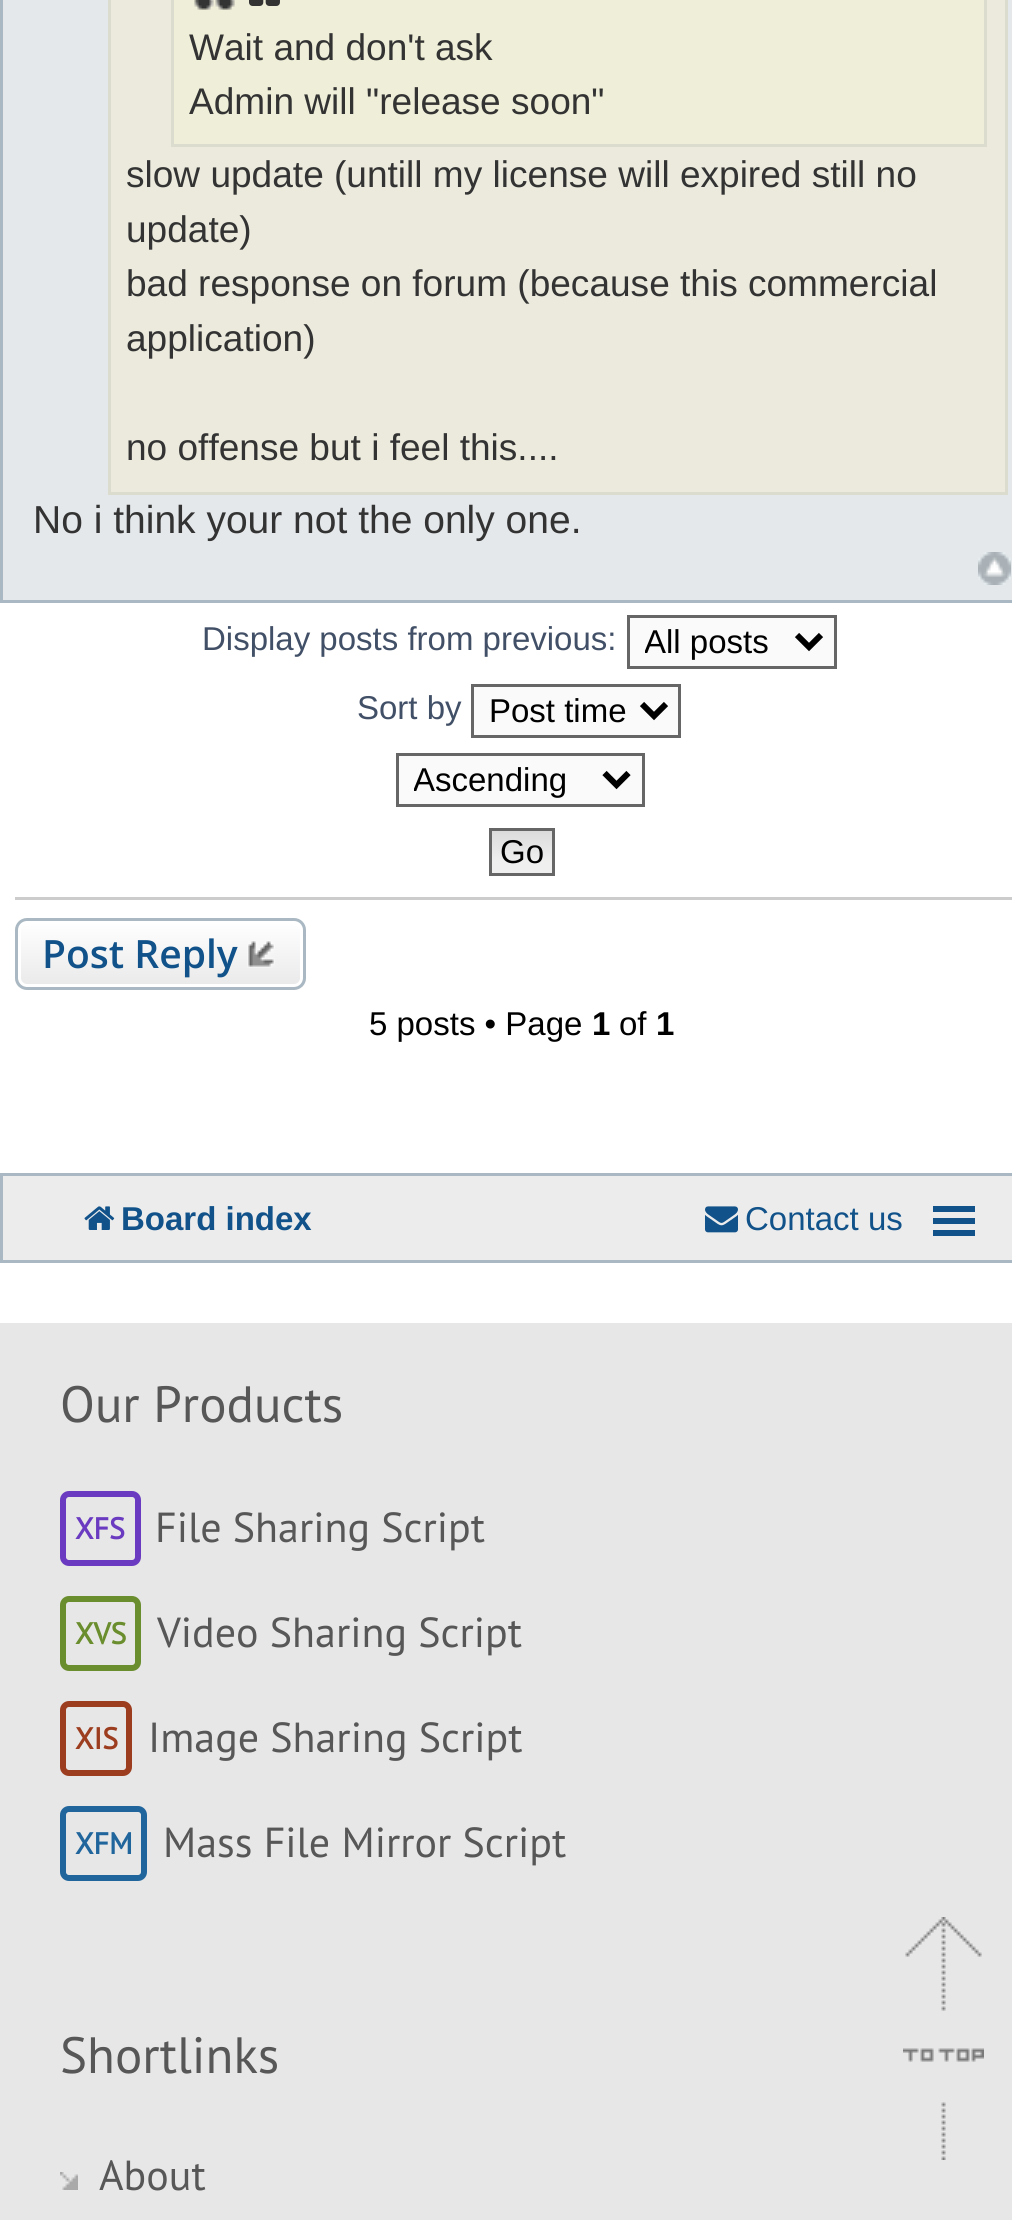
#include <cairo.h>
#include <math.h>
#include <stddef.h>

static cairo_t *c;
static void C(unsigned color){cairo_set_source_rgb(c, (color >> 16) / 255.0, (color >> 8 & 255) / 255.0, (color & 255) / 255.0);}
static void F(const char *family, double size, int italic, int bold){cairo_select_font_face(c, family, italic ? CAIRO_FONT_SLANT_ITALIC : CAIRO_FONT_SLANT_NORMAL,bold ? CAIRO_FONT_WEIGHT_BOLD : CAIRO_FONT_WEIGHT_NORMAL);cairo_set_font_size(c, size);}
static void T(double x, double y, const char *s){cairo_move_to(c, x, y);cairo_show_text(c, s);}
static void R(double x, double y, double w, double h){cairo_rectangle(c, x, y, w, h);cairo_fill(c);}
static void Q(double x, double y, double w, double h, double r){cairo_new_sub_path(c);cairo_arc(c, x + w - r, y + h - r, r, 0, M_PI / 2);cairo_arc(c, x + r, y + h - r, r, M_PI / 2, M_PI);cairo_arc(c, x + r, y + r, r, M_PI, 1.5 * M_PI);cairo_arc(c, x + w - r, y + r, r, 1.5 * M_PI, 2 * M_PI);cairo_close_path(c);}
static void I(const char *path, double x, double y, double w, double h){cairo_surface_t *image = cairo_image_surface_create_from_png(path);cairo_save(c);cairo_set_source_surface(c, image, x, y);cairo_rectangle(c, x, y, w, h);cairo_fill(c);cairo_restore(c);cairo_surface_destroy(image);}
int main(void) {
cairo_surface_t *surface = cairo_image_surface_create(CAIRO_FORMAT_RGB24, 1012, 2220);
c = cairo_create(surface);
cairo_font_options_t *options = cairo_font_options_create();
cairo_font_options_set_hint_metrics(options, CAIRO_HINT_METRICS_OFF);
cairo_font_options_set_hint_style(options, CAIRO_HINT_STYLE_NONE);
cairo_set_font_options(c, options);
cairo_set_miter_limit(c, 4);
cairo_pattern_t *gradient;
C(0xffffff);
cairo_paint(c);
C(0xe5e8ea);
cairo_rectangle(c,1.5,-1.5,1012,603);
cairo_fill_preserve(c);
C(0xa9b8c2);
cairo_set_line_width(c,3);
cairo_stroke(c);
C(0xebeadd);
cairo_rectangle(c,109.5,-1.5,897,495);
cairo_fill_preserve(c);
C(0xdbdbce);
cairo_stroke(c);
C(0xefeed9);
R(174,0,810,144);
I("1.png",194,0,41,10);
cairo_rectangle(c,172.5,-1.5,813,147);
C(0xdbdbce);
cairo_stroke(c);
I("2.png",249,0,31,6);
F("Liberation Sans",37.05,0,0);
C(0x333333);
T(189,60,"Wait and don't ask");
T(189,114,"Admin will \"release soon\"");
T(126,187,"slow update (untill my license will expired still no");
T(126,242,"update)");
T(126,296,"bad response on forum (because this commercial");
T(126,351,"application)");
T(126,460,"no offense but i feel this....");
F("Liberation Sans",39,0,0);
T(33,533,"No i think your not the only one.");
I("3.png",978,552,33,33);
F("Liberation Sans",33,0,0);
C(0x425067);
T(202,650,"Display posts from previous:");
C(0xfafafa);
cairo_rectangle(c,628.5,616.5,207,51);
cairo_fill_preserve(c);
C(0x666666);
cairo_stroke(c);
cairo_new_path(c);
cairo_move_to(c,797,635);
cairo_line_to(c,809,647);
cairo_line_to(c,821,635);
C(0x000000);
cairo_set_line_width(c,6);
cairo_stroke(c);
cairo_save(c);
cairo_rectangle(c,645,621,138,42);
cairo_clip(c);
T(644,653,"All posts");
cairo_restore(c);
C(0x425067);
T(357,719,"Sort by");
C(0xfafafa);
cairo_rectangle(c,472.5,685.5,207,51);
cairo_fill_preserve(c);
C(0x666666);
cairo_set_line_width(c,3);
cairo_stroke(c);
cairo_new_path(c);
cairo_move_to(c,642,704);
cairo_line_to(c,654,716);
cairo_line_to(c,666,704);
C(0x000000);
cairo_set_line_width(c,6);
cairo_stroke(c);
T(489,722,"Post time");
C(0xfafafa);
cairo_rectangle(c,397.5,754.5,246,51);
cairo_fill_preserve(c);
C(0x666666);
cairo_set_line_width(c,3);
cairo_stroke(c);
cairo_new_path(c);
cairo_move_to(c,604.5,773);
cairo_line_to(c,616.5,785);
cairo_line_to(c,628.5,773);
C(0x000000);
cairo_set_line_width(c,6);
cairo_stroke(c);
cairo_save(c);
cairo_rectangle(c,414,759,177,42);
cairo_clip(c);
T(413,791,"Ascending");
cairo_restore(c);
I("4.png",492,831,60,42);
cairo_rectangle(c,490.5,829.5,63,45);
C(0x666666);
cairo_set_line_width(c,3);
cairo_stroke(c);
C(0x000000);
T(500,863,"Go");
C(0xcccccc);
R(15,897,997,3);
cairo_save(c);
Q(15,918,291,72,12);
cairo_clip(c);
gradient = cairo_pattern_create_linear(161,921,161,987);
cairo_pattern_add_color_stop_rgba(gradient,0,1,1,1,1);
cairo_pattern_add_color_stop_rgba(gradient,1,0.914,0.914,0.914,1);
cairo_set_source(c,gradient);
cairo_pattern_destroy(gradient);
R(15,921,291,66);
cairo_restore(c);
Q(19.5,922.5,282,63,7.5);
C(0xffffff);
cairo_stroke(c);
Q(16.5,919.5,288,69,10.5);
C(0xa9b8c2);
cairo_stroke(c);
F("Open Sans SemiBold",39,0,0);
C(0x105289);
T(42,968,"Post Reply");
I("5.png",247,941,28,27);
F("Liberation Sans",33,0,0);
C(0x000000);
T(369,1035,"5 posts • Page");
F("Liberation Sans",33,0,1);
T(592,1035,"1");
F("Liberation Sans",33,0,0);
T(619,1035,"of");
F("Liberation Sans",33,0,1);
T(656,1035,"1");
C(0xececec);
cairo_rectangle(c,1.5,1174.5,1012,87);
cairo_fill_preserve(c);
C(0xa9b8c2);
cairo_stroke(c);
I("6.png",84,1206,31,24);
C(0x105289);
T(121,1230,"Board index");
I("7.png",705,1206,33,27);
F("Liberation Sans",33,0,0);
T(745,1230,"Contact us");
R(933,1206,42,6);
R(933,1218,42,6);
R(933,1230,42,6);
C(0xe7e7e7);
R(0,1323,1012,897);
F("PT Sans",51,0,0);
C(0x575757);
T(60,1422,"Our Products");
Q(63,1494,75,69,6);
C(0x6a3bc0);
cairo_set_line_width(c,6);
cairo_stroke(c);
F("PT Sans",30,0,1);
T(75,1539,"XFS");
F("PT Sans",42,0,0);
C(0x575757);
T(155,1542,"File Sharing Script");
Q(63,1599,75,69,6);
C(0x6a8d2d);
cairo_stroke(c);
F("PT Sans",30,0,1);
T(75,1644,"XVS");
F("PT Sans",42,0,0);
C(0x575757);
T(157,1647,"Video Sharing Script");
Q(63,1704,66,69,6);
C(0x9c3d20);
cairo_stroke(c);
F("PT Sans",30,0,1);
T(75,1749,"XIS");
F("PT Sans",42,0,0);
C(0x575757);
T(148,1752,"Image Sharing Script");
Q(63,1809,81,69,6);
C(0x20659c);
cairo_stroke(c);
F("PT Sans",30,0,1);
T(75,1854,"XFM");
F("PT Sans",42,0,0);
C(0x575757);
T(163,1857,"Mass File Mirror Script");
F("PT Sans",51,0,0);
T(60,2073,"Shortlinks");
I("8.png",60,2172,18,18);
F("PT Sans",42,0,0);
T(99,2190,"About");
I("9.png",903,1917,81,243);
cairo_surface_write_to_png(surface, "o.png");
cairo_font_options_destroy(options);
cairo_destroy(c);
cairo_surface_destroy(surface);
return 0;
}
